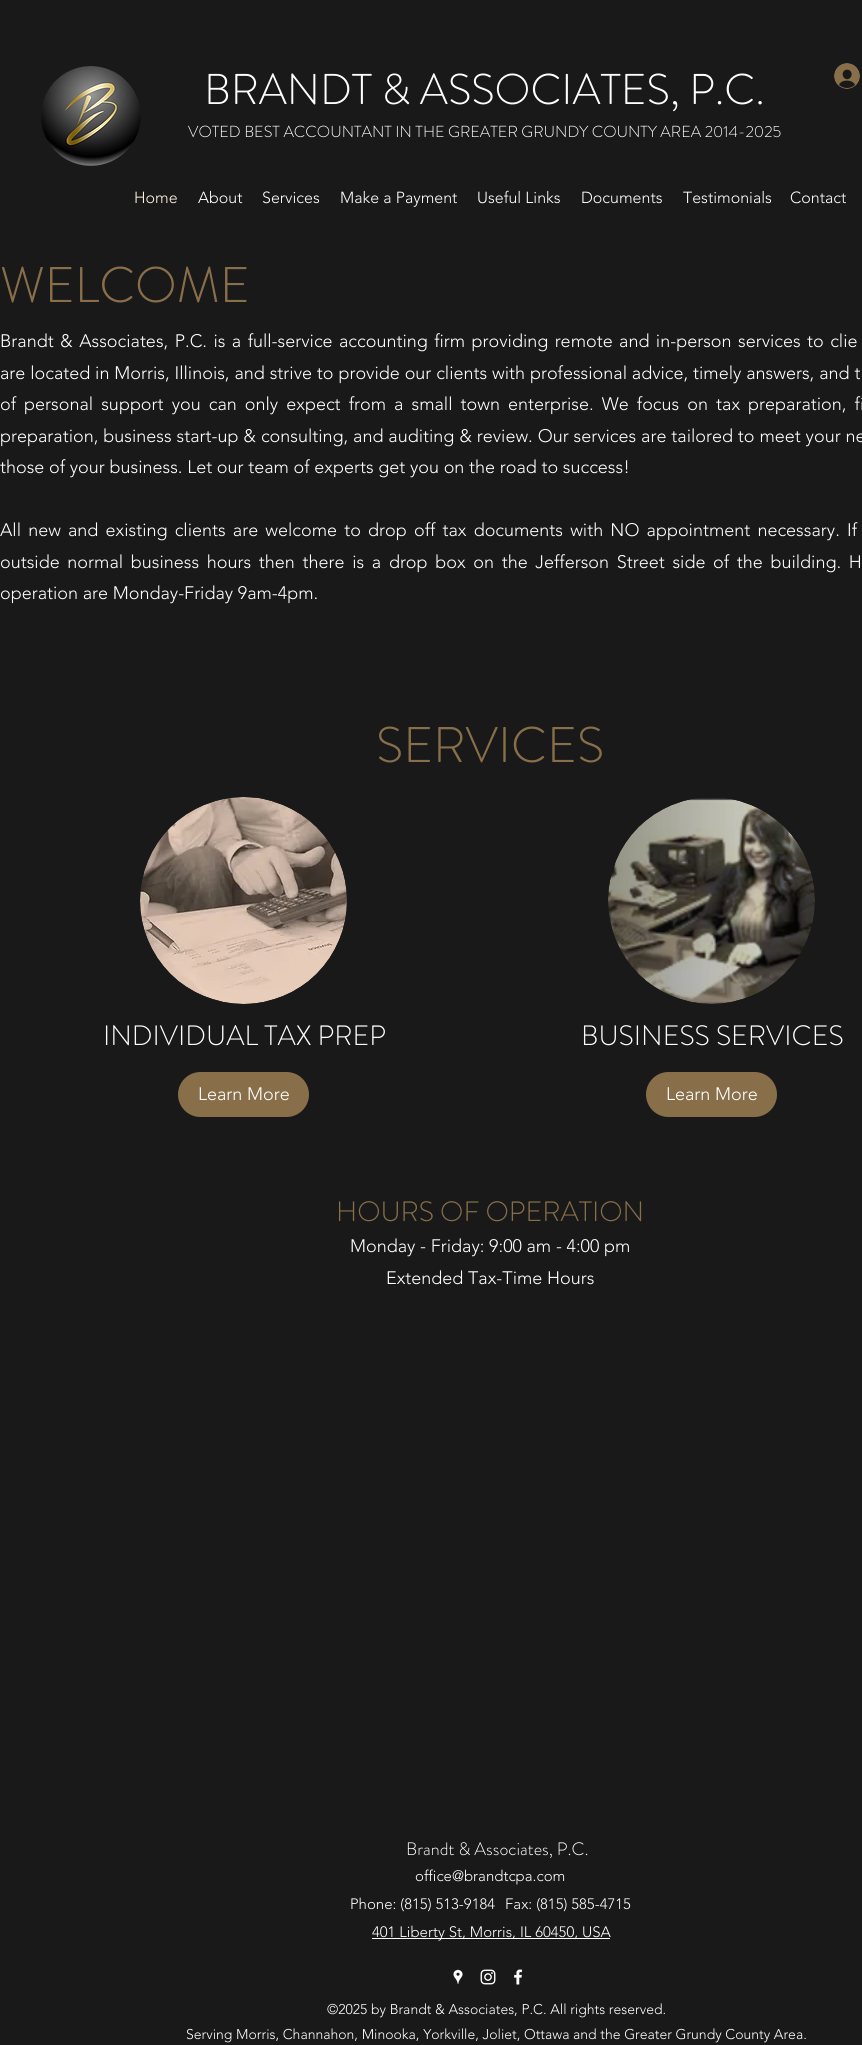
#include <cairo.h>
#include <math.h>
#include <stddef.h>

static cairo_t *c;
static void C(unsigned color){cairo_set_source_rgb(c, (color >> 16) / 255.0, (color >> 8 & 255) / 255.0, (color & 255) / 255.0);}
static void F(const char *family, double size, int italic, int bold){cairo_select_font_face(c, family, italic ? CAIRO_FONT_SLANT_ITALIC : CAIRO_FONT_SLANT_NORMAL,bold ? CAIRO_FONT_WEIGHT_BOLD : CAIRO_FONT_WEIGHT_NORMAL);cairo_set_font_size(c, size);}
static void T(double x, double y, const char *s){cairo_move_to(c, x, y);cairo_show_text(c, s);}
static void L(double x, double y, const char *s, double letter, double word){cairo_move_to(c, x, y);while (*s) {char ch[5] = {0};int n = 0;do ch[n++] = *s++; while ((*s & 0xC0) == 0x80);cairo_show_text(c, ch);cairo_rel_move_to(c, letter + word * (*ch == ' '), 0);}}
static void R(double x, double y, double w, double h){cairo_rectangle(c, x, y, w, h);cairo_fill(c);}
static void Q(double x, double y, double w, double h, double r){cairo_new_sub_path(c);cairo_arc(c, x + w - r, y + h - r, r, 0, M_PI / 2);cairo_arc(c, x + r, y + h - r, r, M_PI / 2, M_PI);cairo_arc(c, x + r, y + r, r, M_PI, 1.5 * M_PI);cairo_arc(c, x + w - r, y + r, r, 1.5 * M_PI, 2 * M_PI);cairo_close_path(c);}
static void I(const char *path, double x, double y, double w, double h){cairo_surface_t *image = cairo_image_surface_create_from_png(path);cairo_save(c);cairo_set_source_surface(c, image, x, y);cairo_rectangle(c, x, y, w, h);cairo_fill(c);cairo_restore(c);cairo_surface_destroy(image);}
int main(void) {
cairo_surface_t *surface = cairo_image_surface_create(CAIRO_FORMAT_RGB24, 862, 2045);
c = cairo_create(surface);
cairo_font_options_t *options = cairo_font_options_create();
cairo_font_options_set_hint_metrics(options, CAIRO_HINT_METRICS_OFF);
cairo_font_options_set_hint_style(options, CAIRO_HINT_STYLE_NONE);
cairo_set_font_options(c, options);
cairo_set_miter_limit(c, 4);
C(0x191919);
cairo_paint(c);
I("1.png",41,66,100,100);
F("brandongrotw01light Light",43,0,0);
C(0xffffff);
T(204,104,"BRANDT & ASSOCIATES, P.C.");
F("brandongrotw01light Light",16,0,0);
T(188,137,"VOTED BEST ACCOUNTANT IN THE GREATER GRUNDY COUNTY AREA 2014-2025");
I("2.png",834,63,26,26);
F("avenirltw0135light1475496 Light",16,0,0);
C(0xfff5e2);
T(134,203,"Home");
C(0xffffff);
T(198,203,"About");
T(262,203,"Services");
T(340,203,"Make a Payment");
T(477,203,"Useful Links");
T(581,203,"Documents");
T(683,203,"Testimonials");
T(790,203,"Contact");
F("brandongrotw01light Light",50,0,0);
C(0x886f4a);
T(0,302,"WELCOME");
F("avenirltw0135light1475496 Light",18,0,0);
C(0xffffff);
L(0,347,"Brandt & Associates, P.C. is a full-service accounting firm providing remote and in-person services to clie",0,1.75);
L(0,379,"are located in Morris, Illinois, and strive to provide our clients with professional advice, timely answers, and t",0,.2);
L(0,410,"of personal support you can only expect from a small town enterprise. We focus on tax preparation, fi",0,3.4);
L(0,442,"preparation, business start-up & consulting, and auditing & review. Our services are tailored to meet your ne",0,.2);
T(0,473,"those of your business. Let our team of experts get you on the road to success!");
L(0,536,"All new and existing clients are welcome to drop off tax documents with NO appointment necessary. If",0,2.5);
L(0,568,"outside normal business hours then there is a drop box on the Jefferson Street side of the building. H",0,3);
T(0,599,"operation are Monday-Friday 9am-4pm.");
F("brandongrotw01light Light",50,0,0);
C(0x886f4a);
T(376,762,"SERVICES");
I("3.png",140,797,207,207);
F("brandongrotw01light Light",28,0,0);
C(0xffffff);
T(103,1045,"INDIVIDUAL TAX PREP");
C(0x886f4a);
Q(178,1072,131,45,22.5);
cairo_fill(c);
F("avenirltw0135light1475496 Light",18,0,0);
C(0xffffff);
T(198,1100,"Learn More");
I("4.png",608,798,207,206);
F("brandongrotw01light Light",28,0,0);
T(581,1045,"BUSINESS SERVICES");
C(0x886f4a);
Q(646,1072,131,45,22.5);
cairo_fill(c);
F("avenirltw0135light1475496 Light",18,0,0);
C(0xffffff);
T(666,1100,"Learn More");
F("brandongrotw01light Light",28,0,0);
C(0x886f4a);
T(336,1221,"HOURS OF OPERATION");
F("avenirltw0135light1475496 Light",18,0,0);
C(0xffffff);
T(350,1252,"Monday - Friday: 9:00 am - 4:00 pm");
T(386,1284,"Extended Tax-Time Hours");
F("brandongrotw01light Light",18,0,0);
T(406,1855,"Brandt & Associates, P.C.");
F("avenirltw0135light1475496 Light",15,0,0);
T(415,1881,"office@brandtcpa.com");
T(350,1909,"Phone: (815) 513-9184");
T(505,1909,"Fax: (815) 585-4715");
R(372,1938,238,1);
T(372,1937,"401 Liberty St, Morris, IL 60450, USA");
I("5.png",453,1969,10,15);
I("6.png",480,1969,16,16);
I("7.png",514,1969,9,16);
F("avenirltw0135light1475496 Light",14,0,0);
T(327,2014,"©2025 by Brandt & Associates, P.C. All rights reserved.");
T(186,2039,"Serving Morris, Channahon, Minooka, Yorkville, Joliet, Ottawa and the Greater Grundy County Area.");
cairo_surface_write_to_png(surface, "o.png");
cairo_font_options_destroy(options);
cairo_destroy(c);
cairo_surface_destroy(surface);
return 0;
}
